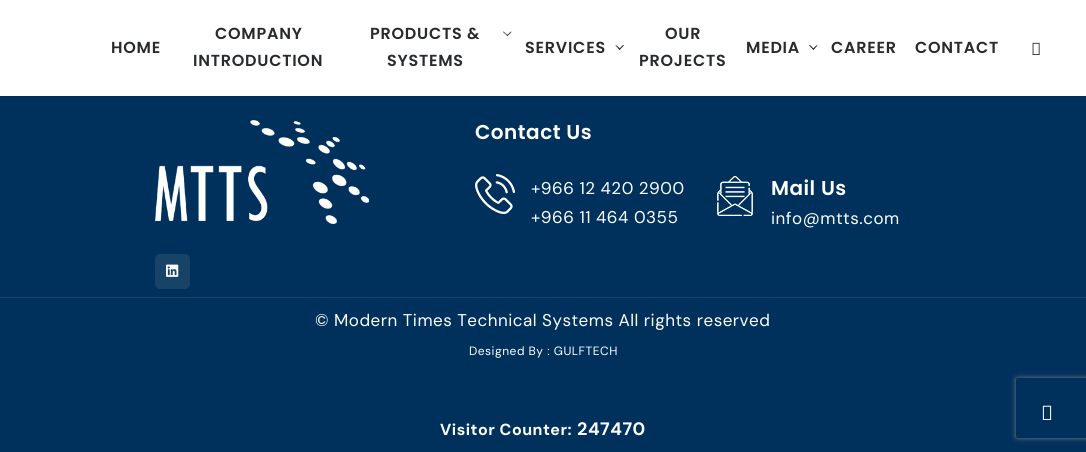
#include <cairo.h>
#include <math.h>
#include <stddef.h>

static cairo_t *c;
static void C(unsigned color){cairo_set_source_rgb(c, (color >> 16) / 255.0, (color >> 8 & 255) / 255.0, (color & 255) / 255.0);}
static void F(const char *family, double size, int italic, int bold){cairo_select_font_face(c, family, italic ? CAIRO_FONT_SLANT_ITALIC : CAIRO_FONT_SLANT_NORMAL,bold ? CAIRO_FONT_WEIGHT_BOLD : CAIRO_FONT_WEIGHT_NORMAL);cairo_set_font_size(c, size);}
static void L(double x, double y, const char *s, double letter, double word){cairo_move_to(c, x, y);while (*s) {char ch[5] = {0};int n = 0;do ch[n++] = *s++; while ((*s & 0xC0) == 0x80);cairo_show_text(c, ch);cairo_rel_move_to(c, letter + word * (*ch == ' '), 0);}}
static void R(double x, double y, double w, double h){cairo_rectangle(c, x, y, w, h);cairo_fill(c);}
static void Q(double x, double y, double w, double h, double r){cairo_new_sub_path(c);cairo_arc(c, x + w - r, y + h - r, r, 0, M_PI / 2);cairo_arc(c, x + r, y + h - r, r, M_PI / 2, M_PI);cairo_arc(c, x + r, y + r, r, M_PI, 1.5 * M_PI);cairo_arc(c, x + w - r, y + r, r, 1.5 * M_PI, 2 * M_PI);cairo_close_path(c);}
static void S(double x, double y, double w, double h, double r, double blur, double alpha){cairo_push_group_with_content(c, CAIRO_CONTENT_ALPHA);cairo_set_operator(c, CAIRO_OPERATOR_SOURCE);for (int i = 15; i >= -15 && fmin(w, h) + blur * i / 3 > 0; i -= 2) {double e = blur * i / 6;cairo_set_source_rgba(c, 0, 0, 0, alpha * erfc((i - 1) / 8.5) / 2);Q(x - e, y - e, w + 2 * e, h + 2 * e, fmax(0, fmin(r + e + blur * .6, fmin(w, h) / 2 + e)));cairo_fill(c);}cairo_pattern_t *soft = cairo_pop_group(c);cairo_mask(c, soft);cairo_pattern_destroy(soft);}
static void I(const char *path, double x, double y, double w, double h){cairo_surface_t *image = cairo_image_surface_create_from_png(path);cairo_save(c);cairo_set_source_surface(c, image, x, y);cairo_rectangle(c, x, y, w, h);cairo_fill(c);cairo_restore(c);cairo_surface_destroy(image);}
int main(void) {
cairo_surface_t *surface = cairo_image_surface_create(CAIRO_FORMAT_RGB24, 1086, 452);
c = cairo_create(surface);
cairo_font_options_t *options = cairo_font_options_create();
cairo_font_options_set_hint_metrics(options, CAIRO_HINT_METRICS_OFF);
cairo_font_options_set_hint_style(options, CAIRO_HINT_STYLE_NONE);
cairo_set_font_options(c, options);
cairo_set_miter_limit(c, 4);
C(0x00315c);
cairo_paint(c);
C(0x000000);
S(0,-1,1086,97,0,1.5,.2);
C(0xffffff);
R(0,0,1086,96);
F("Poppins SemiBold",16,0,0);
C(0x282b2d);
L(111,53,"HOME",.75,0);
L(215,39,"COMPANY",.75,0);
L(193,66,"INTRODUCTION",.75,0);
L(370,39,"PRODUCTS &",.75,0);
cairo_new_path(c);
cairo_move_to(c,511,31.5);
cairo_line_to(c,511.5,32);
cairo_line_to(c,507.5,36);
cairo_line_to(c,506.5,35.5);
cairo_close_path(c);
cairo_fill(c);
cairo_new_path(c);
cairo_move_to(c,503.5,31.5);
cairo_line_to(c,508,35.5);
cairo_line_to(c,507.5,36);
cairo_line_to(c,503,32);
cairo_close_path(c);
cairo_fill(c);
L(387,66,"SYSTEMS",.75,0);
L(525,53,"SERVICES",.75,0);
cairo_new_path(c);
cairo_move_to(c,623,45);
cairo_line_to(c,624,45.5);
cairo_line_to(c,619.5,50);
cairo_line_to(c,619,49);
cairo_close_path(c);
cairo_fill(c);
cairo_new_path(c);
cairo_move_to(c,616,45);
cairo_line_to(c,620.5,49);
cairo_line_to(c,619.5,50);
cairo_line_to(c,615.5,45.5);
cairo_close_path(c);
cairo_fill(c);
L(665,39,"OUR",.75,0);
L(639,66,"PROJECTS",.75,0);
L(746,53,"MEDIA",.75,0);
cairo_new_path(c);
cairo_move_to(c,817,45);
cairo_line_to(c,817.5,45.5);
cairo_line_to(c,813.5,50);
cairo_line_to(c,812.5,49);
cairo_close_path(c);
cairo_fill(c);
cairo_new_path(c);
cairo_move_to(c,810,45);
cairo_line_to(c,814,49);
cairo_line_to(c,813.5,50);
cairo_line_to(c,809,45.5);
cairo_close_path(c);
cairo_fill(c);
L(831,53,"CAREER",.75,0);
L(915,53,"CONTACT",.75,0);
I("1.png",1032,42,8,13);
I("2.png",155,120,214,104);
C(0x174369);
Q(155,254,35,35,5);
cairo_fill(c);
I("3.png",166,264,13,13);
F("Poppins SemiBold",20,0,0);
C(0xffffff);
L(475,139,"Contact Us",.5,0);
I("4.png",475,174,40,40);
F("DM Sans",17,0,0);
L(531,194,"+966 12 420 2900",.5,0);
L(531,223,"+966 11 464 0355",.5,0);
I("5.png",717,176,36,40);
F("Poppins SemiBold",20,0,0);
L(771,195,"Mail Us",.5,0);
F("DM Sans",17,0,0);
L(771,224,"info@mtts.com",.5,0);
C(0x1a466c);
R(0,297,1086,1);
C(0xffffff);
L(315,326,"© Modern Times Technical Systems All rights reserved",.5,0);
F("DM Sans",12,0,0);
L(469,355,"Designed By : GULFTECH",.5,0);
F("DM Sans",16,0,1);
L(440,435,"Visitor Counter:",.5,0);
F("DM Sans",18,0,1);
L(577,435,"247470",.5,0);
cairo_save(c);
cairo_set_fill_rule(c,CAIRO_FILL_RULE_EVEN_ODD);
cairo_new_path(c);
cairo_move_to(c,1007,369);
cairo_line_to(c,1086,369);
cairo_line_to(c,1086,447);
cairo_line_to(c,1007,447);
cairo_close_path(c);
cairo_move_to(c,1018,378);
cairo_line_to(c,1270,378);
cairo_curve_to(c,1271,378,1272,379,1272,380);
cairo_line_to(c,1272,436);
cairo_curve_to(c,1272,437,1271,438,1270,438);
cairo_line_to(c,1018,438);
cairo_curve_to(c,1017,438,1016,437,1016,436);
cairo_line_to(c,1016,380);
cairo_curve_to(c,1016,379,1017,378,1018,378);
cairo_close_path(c);
cairo_clip(c);
C(0x808080);
S(1016,378,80,60,2,2.5,1);
cairo_restore(c);
I("6.png",1042,405,10,15);
cairo_surface_write_to_png(surface, "o.png");
cairo_font_options_destroy(options);
cairo_destroy(c);
cairo_surface_destroy(surface);
return 0;
}
